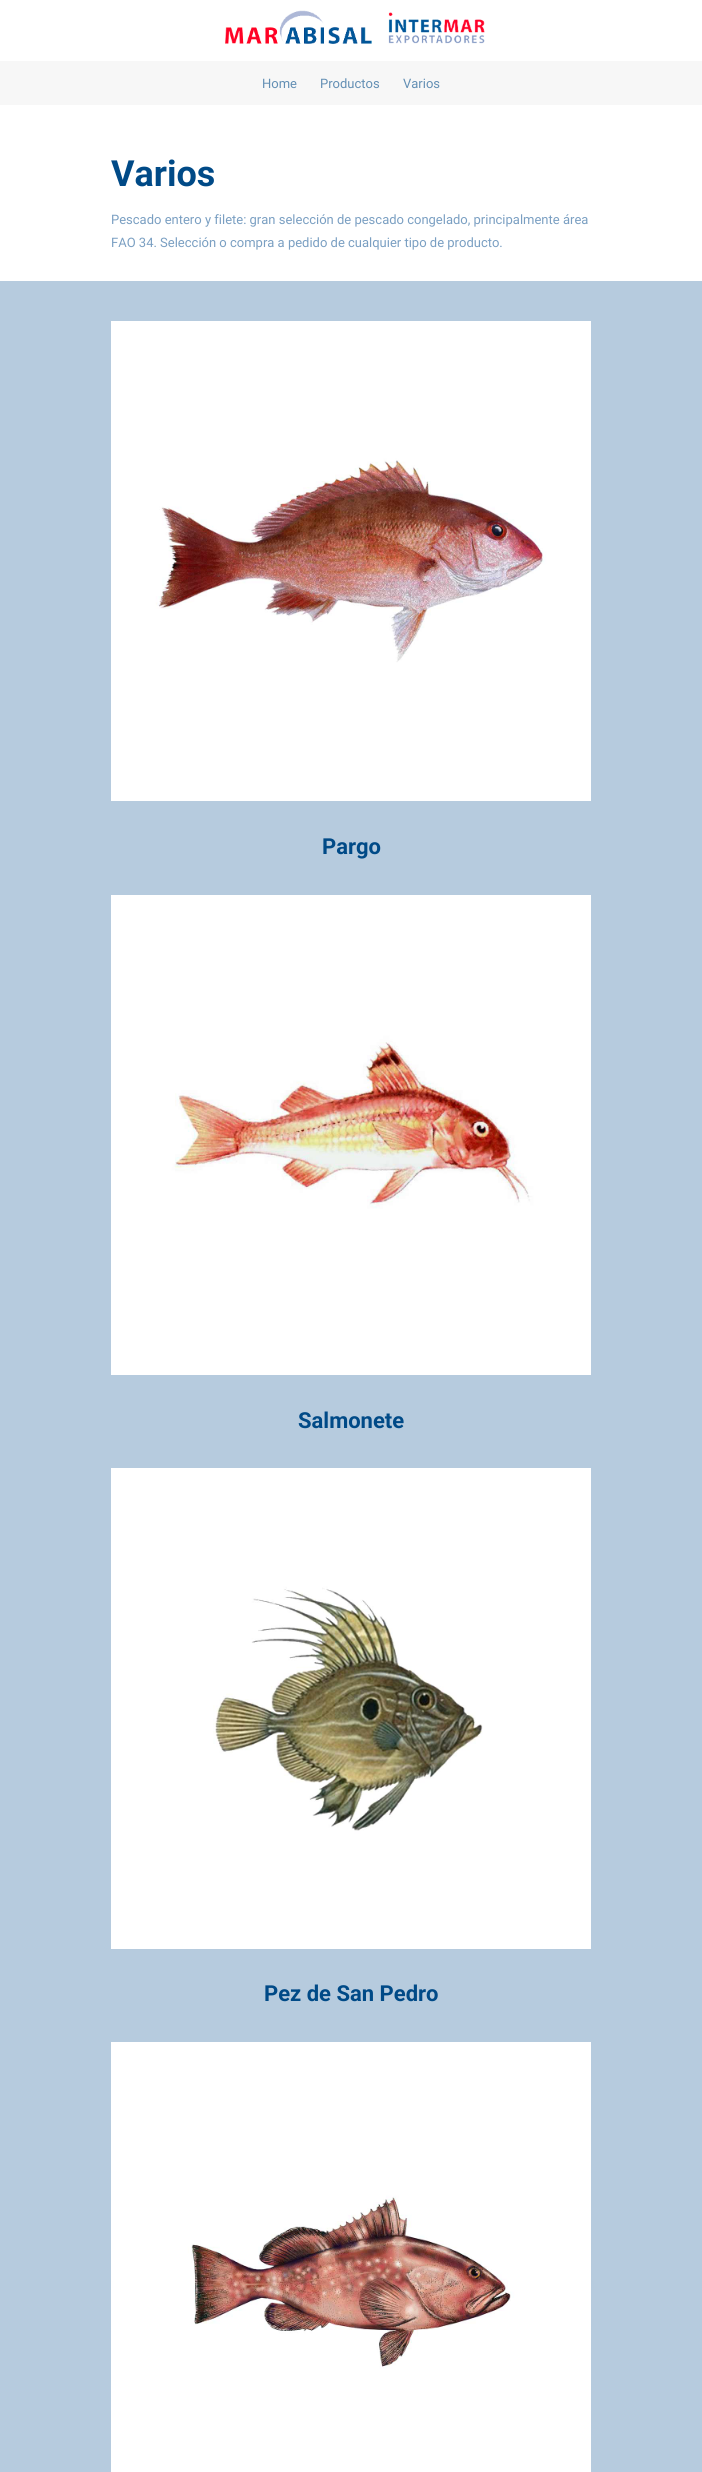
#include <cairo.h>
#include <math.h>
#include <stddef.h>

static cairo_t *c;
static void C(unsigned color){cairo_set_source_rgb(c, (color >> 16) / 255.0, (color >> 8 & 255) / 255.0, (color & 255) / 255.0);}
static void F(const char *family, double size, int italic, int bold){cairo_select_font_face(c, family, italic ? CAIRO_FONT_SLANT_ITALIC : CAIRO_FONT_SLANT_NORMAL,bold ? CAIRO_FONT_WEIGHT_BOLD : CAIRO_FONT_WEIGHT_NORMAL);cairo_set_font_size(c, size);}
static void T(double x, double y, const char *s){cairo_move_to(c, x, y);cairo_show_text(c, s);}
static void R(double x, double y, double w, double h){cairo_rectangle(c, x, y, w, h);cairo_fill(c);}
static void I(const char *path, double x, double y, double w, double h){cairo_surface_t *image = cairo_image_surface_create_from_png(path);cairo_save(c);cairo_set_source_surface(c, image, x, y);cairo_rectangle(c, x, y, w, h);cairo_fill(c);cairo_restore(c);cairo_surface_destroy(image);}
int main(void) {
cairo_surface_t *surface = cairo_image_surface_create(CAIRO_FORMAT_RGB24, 702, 2472);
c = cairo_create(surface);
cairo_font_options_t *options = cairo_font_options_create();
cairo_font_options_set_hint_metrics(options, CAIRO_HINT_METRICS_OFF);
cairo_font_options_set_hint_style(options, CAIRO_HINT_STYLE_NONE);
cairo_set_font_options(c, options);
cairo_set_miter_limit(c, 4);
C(0xffffff);
cairo_paint(c);
I("1.png",225,10,260,34);
C(0xf7f7f7);
R(0,61,702,44);
F("Roboto",13,0,0);
C(0x638fb4);
T(262,88,"Home");
T(320,88,"Productos");
T(403,88,"Varios");
F("Roboto",36,0,1);
C(0x004a87);
T(111,186,"Varios");
F("Roboto",13,0,0);
C(0x7a9fc2);
T(111,224,"Pescado entero y filete: gran selección de pescado congelado, principalmente área");
T(111,247,"FAO 34. Selección o compra a pedido de cualquier tipo de producto.");
C(0xb6cbde);
R(0,281,702,2191);
I("2.png",111,321,480,480);
F("Roboto",22,0,1);
C(0x004a87);
T(322,854,"Pargo");
I("3.png",111,895,480,480);
T(298,1428,"Salmonete");
I("4.png",111,1468,480,481);
T(264,2001,"Pez de San Pedro");
I("5.png",111,2042,480,430);
cairo_surface_write_to_png(surface, "o.png");
cairo_font_options_destroy(options);
cairo_destroy(c);
cairo_surface_destroy(surface);
return 0;
}
